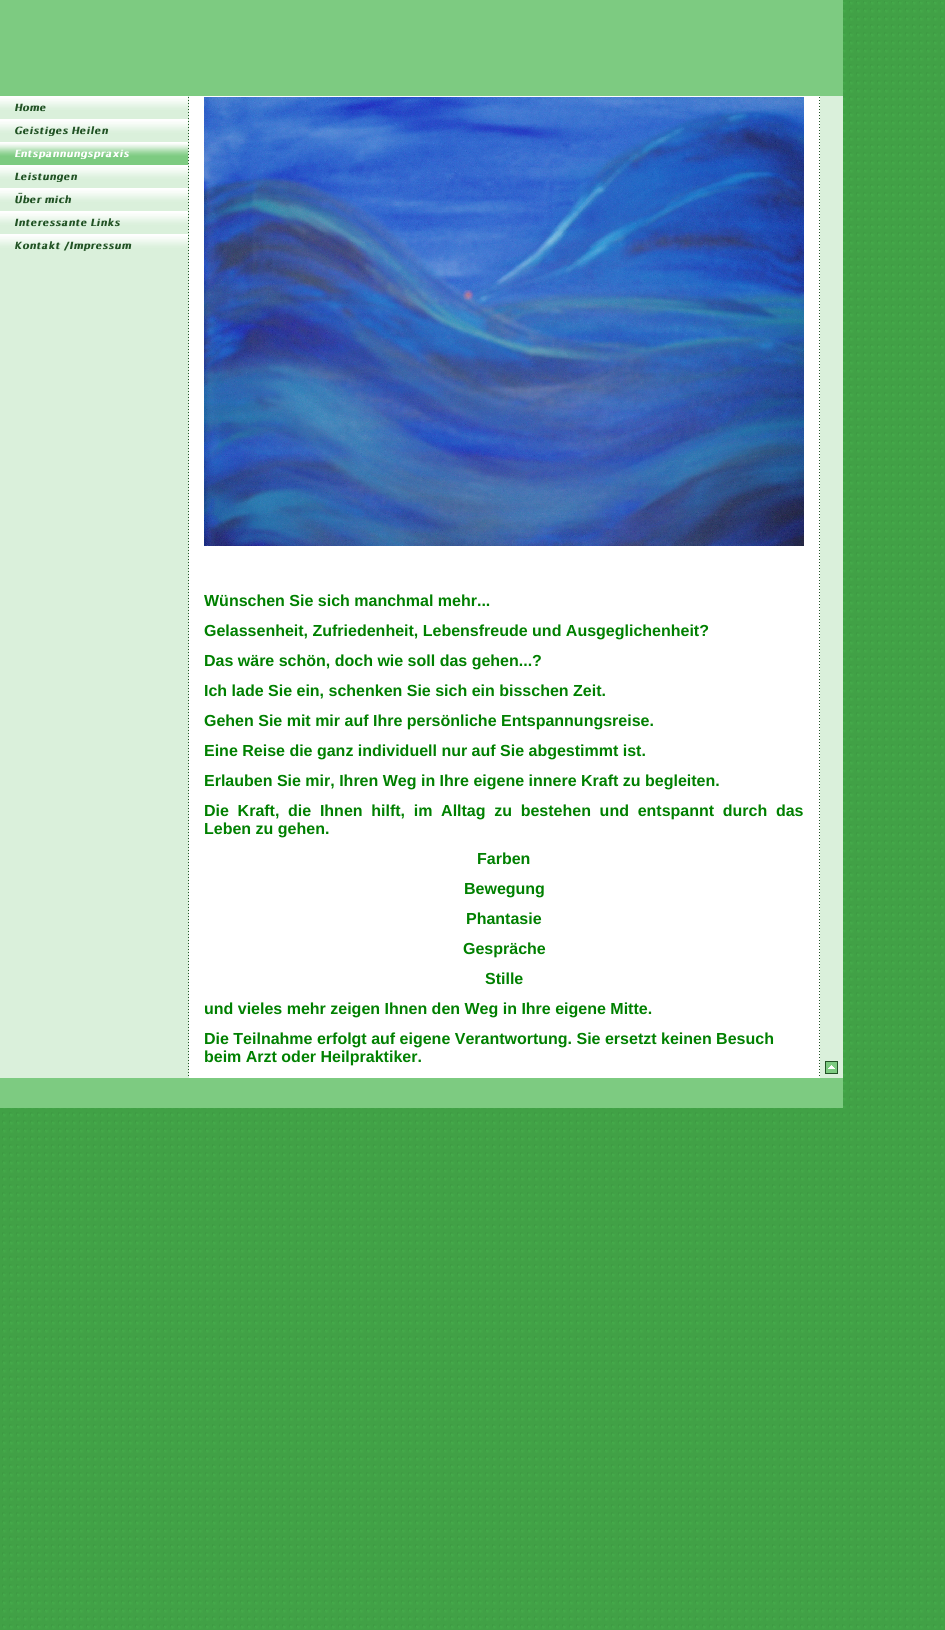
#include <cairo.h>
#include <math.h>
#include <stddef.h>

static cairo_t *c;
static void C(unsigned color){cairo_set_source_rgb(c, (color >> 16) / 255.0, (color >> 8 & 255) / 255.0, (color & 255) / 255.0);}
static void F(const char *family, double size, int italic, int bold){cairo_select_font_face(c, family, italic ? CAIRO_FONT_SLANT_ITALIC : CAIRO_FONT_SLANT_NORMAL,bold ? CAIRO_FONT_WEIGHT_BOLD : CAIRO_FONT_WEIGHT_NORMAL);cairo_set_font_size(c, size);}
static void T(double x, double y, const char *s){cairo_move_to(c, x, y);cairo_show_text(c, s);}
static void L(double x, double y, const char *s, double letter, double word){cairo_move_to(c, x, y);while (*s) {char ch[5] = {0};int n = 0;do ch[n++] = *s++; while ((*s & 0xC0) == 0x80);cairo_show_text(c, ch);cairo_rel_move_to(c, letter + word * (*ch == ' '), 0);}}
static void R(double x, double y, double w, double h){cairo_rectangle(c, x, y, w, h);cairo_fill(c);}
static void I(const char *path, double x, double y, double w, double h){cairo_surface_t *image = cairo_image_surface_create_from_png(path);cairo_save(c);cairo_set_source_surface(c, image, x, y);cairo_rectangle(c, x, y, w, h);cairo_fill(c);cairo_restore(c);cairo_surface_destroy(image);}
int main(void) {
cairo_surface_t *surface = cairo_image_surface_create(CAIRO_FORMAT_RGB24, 945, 1630);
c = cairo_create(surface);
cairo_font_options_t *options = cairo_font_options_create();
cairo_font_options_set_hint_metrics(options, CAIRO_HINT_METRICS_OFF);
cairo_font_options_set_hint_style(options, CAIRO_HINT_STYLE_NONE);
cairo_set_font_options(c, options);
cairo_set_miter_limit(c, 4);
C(0x41a146);
cairo_paint(c);
I("1.png",2,1,942,1628);
C(0x7dcb81);
R(0,0,843,96);
C(0xdaf0db);
R(0,112,188,966);
I("2.png",0,96,188,16);
I("3.png",0,119,188,17);
I("4.png",0,142,188,23);
I("5.png",0,165,188,17);
I("6.png",0,188,188,16);
I("7.png",0,211,188,16);
I("8.png",0,234,188,17);
R(188,96,1,982);
I("9.png",188,97,1,979);
C(0xffffff);
R(189,96,631,982);
C(0xdaf0db);
R(820,96,23,982);
I("10.png",825,1061,13,13);
I("11.png",204,97,600,449);
F("Liberation Sans",16,0,1);
C(0x008000);
T(204,606,"Wünschen Sie sich manchmal mehr...");
T(204,636,"Gelassenheit, Zufriedenheit, Lebensfreude und Ausgeglichenheit?");
T(204,666,"Das wäre schön, doch wie soll das gehen...?");
T(204,696,"Ich lade Sie ein, schenken Sie sich ein bisschen Zeit.");
T(204,726,"Gehen Sie mit mir auf Ihre persönliche Entspannungsreise.");
T(204,756,"Eine Reise die ganz individuell nur auf Sie abgestimmt ist.");
T(204,786,"Erlauben Sie mir, Ihren Weg in Ihre eigene innere Kraft zu begleiten.");
L(204,816,"Die Kraft, die Ihnen hilft, im Alltag zu bestehen und entspannt durch das",0,4.25);
T(204,834,"Leben zu gehen.");
T(477,864,"Farben");
T(464,894,"Bewegung");
T(466,924,"Phantasie");
T(463,954,"Gespräche");
T(485,984,"Stille");
T(204,1014,"und vieles mehr zeigen Ihnen den Weg in Ihre eigene Mitte.");
T(204,1044,"Die Teilnahme erfolgt auf eigene Verantwortung. Sie ersetzt keinen Besuch");
T(204,1062,"beim Arzt oder Heilpraktiker.");
I("12.png",819,97,1,979);
C(0x7dcb81);
R(0,1078,843,30);
cairo_surface_write_to_png(surface, "o.png");
cairo_font_options_destroy(options);
cairo_destroy(c);
cairo_surface_destroy(surface);
return 0;
}
